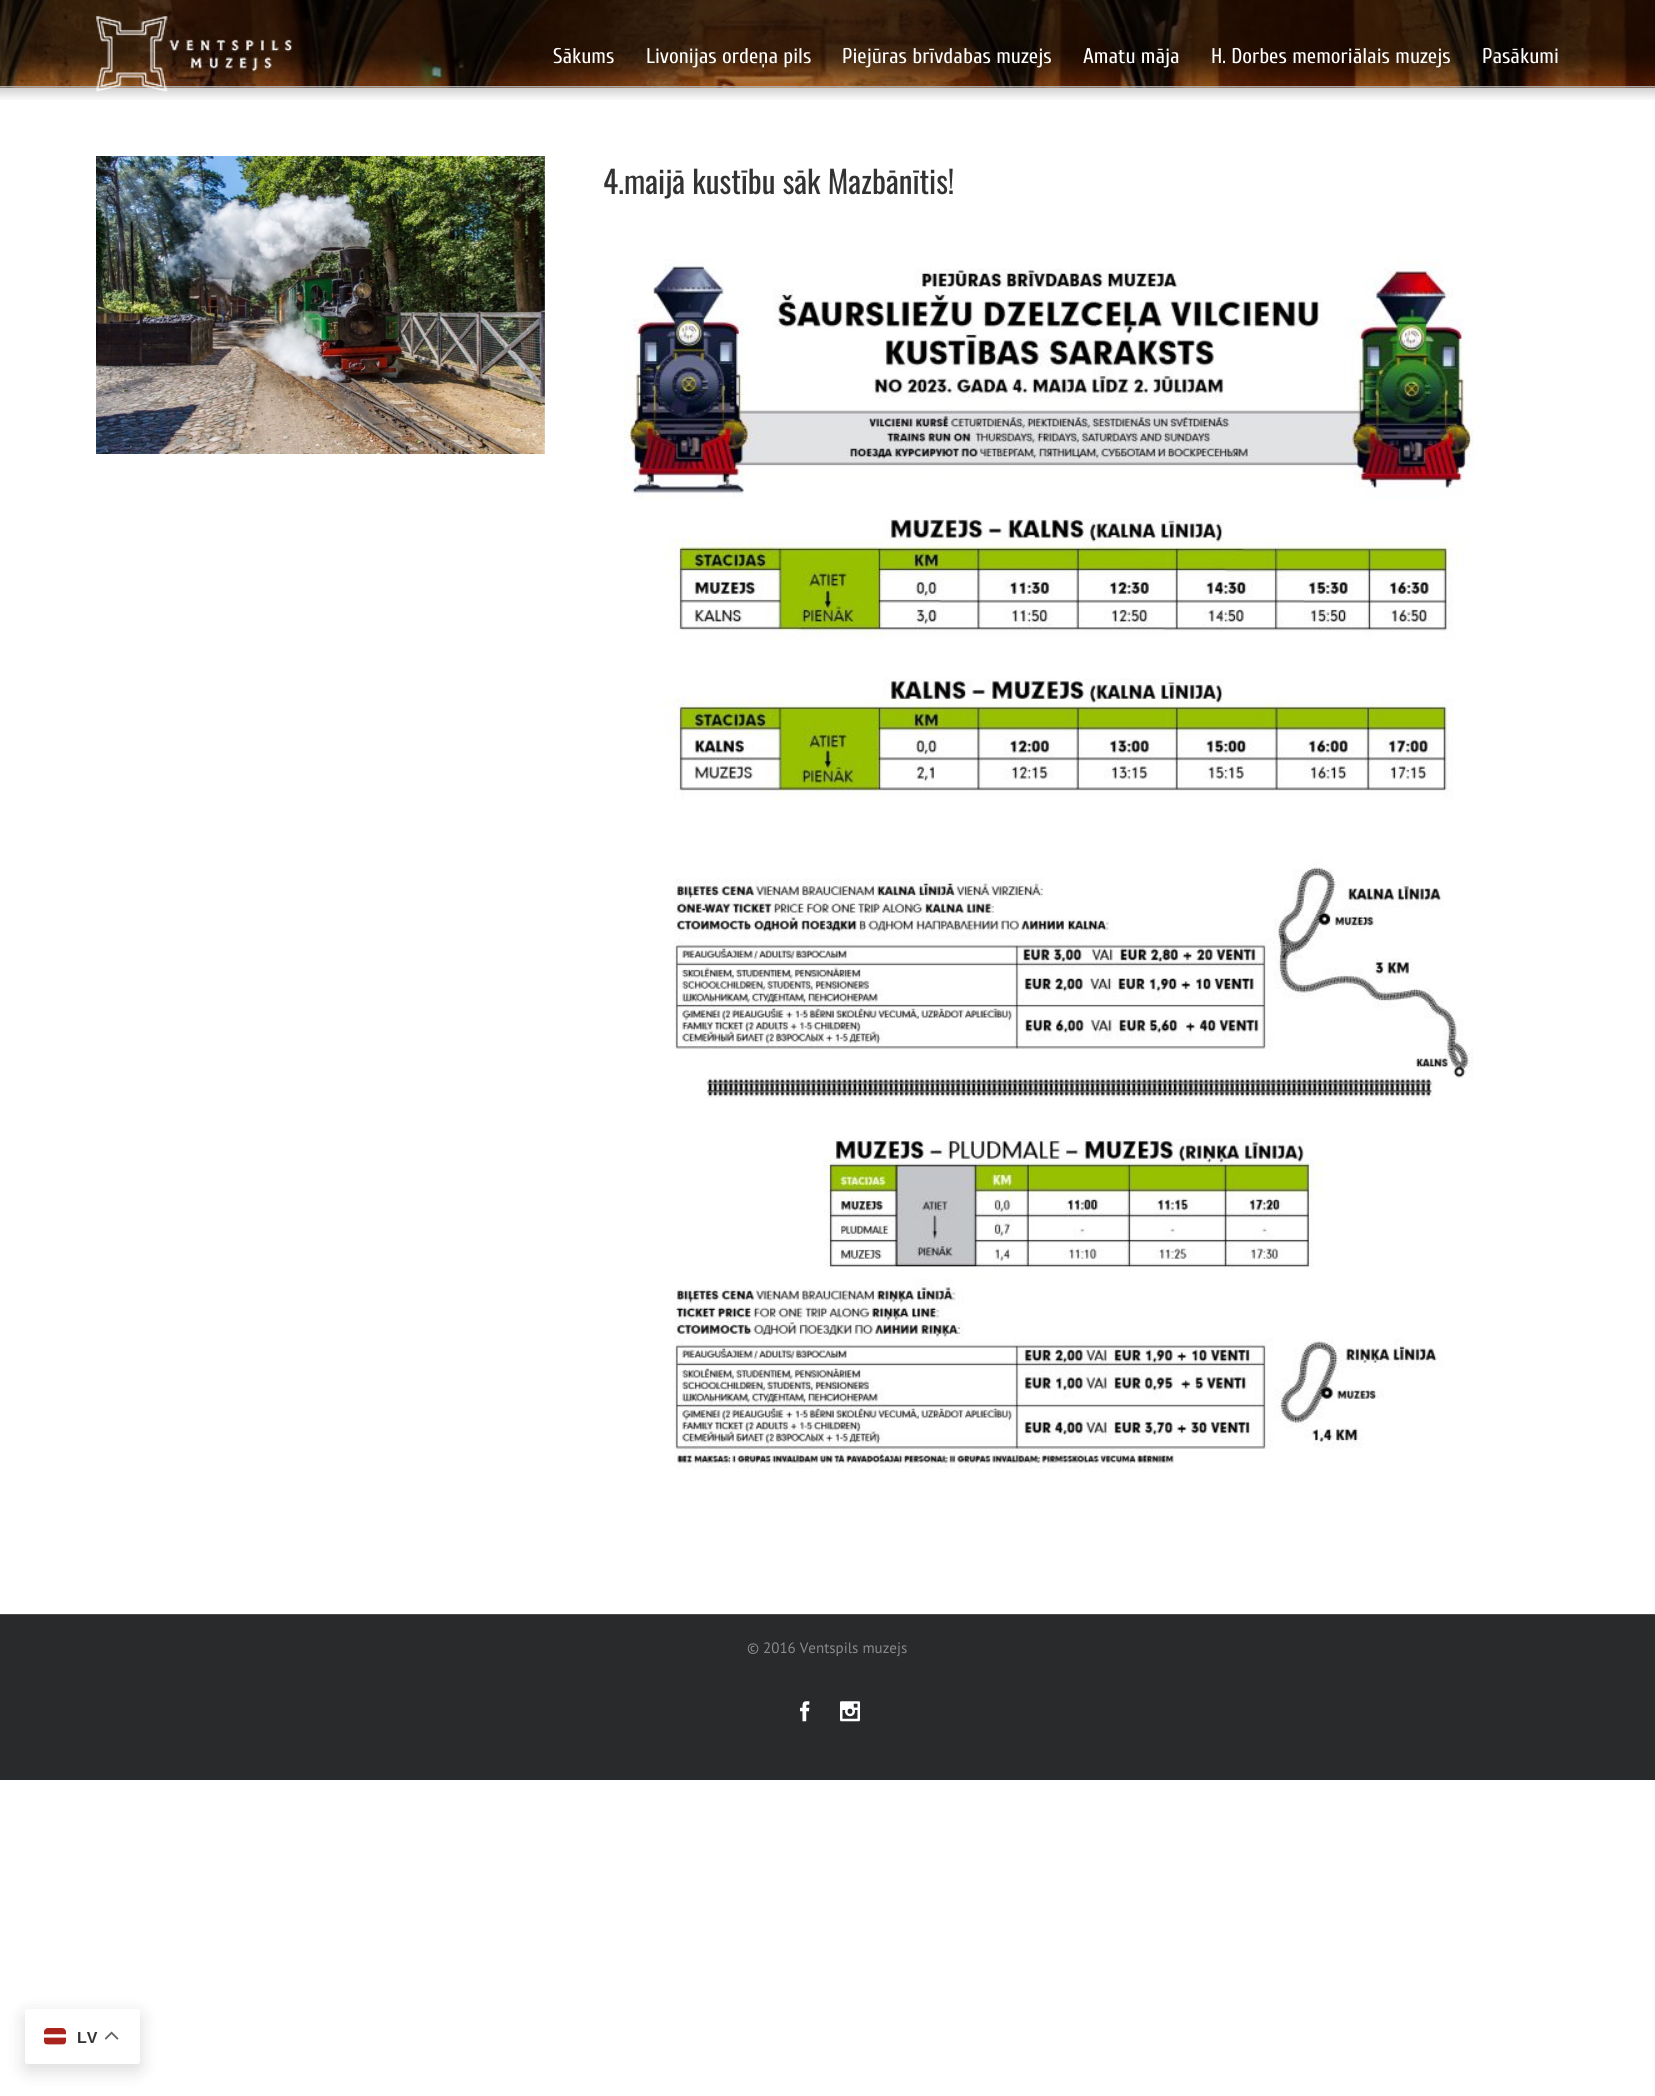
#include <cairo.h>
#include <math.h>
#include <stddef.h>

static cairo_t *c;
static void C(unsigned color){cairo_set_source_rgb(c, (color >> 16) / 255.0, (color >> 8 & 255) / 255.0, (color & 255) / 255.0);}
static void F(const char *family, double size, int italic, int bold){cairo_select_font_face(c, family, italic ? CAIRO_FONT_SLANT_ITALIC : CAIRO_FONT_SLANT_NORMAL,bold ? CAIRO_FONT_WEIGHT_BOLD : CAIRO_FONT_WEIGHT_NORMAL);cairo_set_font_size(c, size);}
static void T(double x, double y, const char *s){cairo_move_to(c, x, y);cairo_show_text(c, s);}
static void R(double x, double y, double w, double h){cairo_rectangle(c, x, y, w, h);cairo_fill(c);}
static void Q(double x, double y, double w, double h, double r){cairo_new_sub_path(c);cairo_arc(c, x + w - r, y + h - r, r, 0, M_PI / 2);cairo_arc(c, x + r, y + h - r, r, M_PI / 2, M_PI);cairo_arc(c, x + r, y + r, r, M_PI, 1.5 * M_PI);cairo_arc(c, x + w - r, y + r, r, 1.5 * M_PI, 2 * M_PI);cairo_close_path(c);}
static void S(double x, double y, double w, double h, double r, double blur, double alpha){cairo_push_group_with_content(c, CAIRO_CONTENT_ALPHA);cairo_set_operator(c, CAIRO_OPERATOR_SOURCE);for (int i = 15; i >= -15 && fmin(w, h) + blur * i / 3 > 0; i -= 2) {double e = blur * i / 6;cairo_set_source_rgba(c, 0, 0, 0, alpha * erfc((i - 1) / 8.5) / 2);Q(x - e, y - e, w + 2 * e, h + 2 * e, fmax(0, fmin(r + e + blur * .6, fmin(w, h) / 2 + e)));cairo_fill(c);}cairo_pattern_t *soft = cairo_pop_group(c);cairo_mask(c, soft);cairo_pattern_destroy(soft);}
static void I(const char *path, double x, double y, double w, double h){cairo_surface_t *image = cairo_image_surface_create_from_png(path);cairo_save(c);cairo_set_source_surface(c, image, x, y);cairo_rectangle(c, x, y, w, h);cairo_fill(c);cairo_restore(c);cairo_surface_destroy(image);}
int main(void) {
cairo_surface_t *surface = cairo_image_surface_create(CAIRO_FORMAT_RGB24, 1655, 2096);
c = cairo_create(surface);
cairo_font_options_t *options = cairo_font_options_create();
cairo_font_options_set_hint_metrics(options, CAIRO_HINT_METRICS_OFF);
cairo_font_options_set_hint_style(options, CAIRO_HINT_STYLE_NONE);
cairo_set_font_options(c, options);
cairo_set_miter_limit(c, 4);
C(0xffffff);
cairo_paint(c);
C(0xf6f6f6);
R(0,87,1655,1);
I("1.png",0,0,1655,88);
C(0xd2d3d4);
R(0,86,1655,1);
I("2.png",0,0,1655,100);
I("3.png",96,16,196,76);
F("Cuprum",21.25,0,0);
C(0xffffff);
T(553,63,"Sākums");
T(646,63,"Livonijas ordeņa pils");
T(842,63,"Piejūras brīvdabas muzejs");
T(1083,63,"Amatu māja");
T(1211,63,"H. Dorbes memoriālais muzejs");
T(1482,63,"Pasākumi");
I("4.png",96,156,449,298);
F("Oswald",31.25,0,0);
C(0x333333);
T(603,194,"4.maijā kustību sāk Mazbānītis!");
I("5.png",623,259,856,1210);
C(0x282a2b);
R(0,1615,1655,165);
C(0x4b4c4d);
R(0,1614,1655,1);
F("PT Sans",15,0,0);
C(0x8c8989);
T(747,1653,"© 2016 Ventspils muzejs");
I("6.png",800,1701,10,21);
I("7.png",840,1701,20,21);
C(0x000000);
S(25,2015,115,55,2.5,9.5,.15);
C(0xffffff);
Q(25,2009,115,55,2.5);
cairo_fill(c);
I("8.png",44,2028,22,17);
F("Liberation Sans",16,0,1);
C(0x333333);
T(77,2043,"LV");
I("9.png",105,2031,14,9);
cairo_surface_write_to_png(surface, "o.png");
cairo_font_options_destroy(options);
cairo_destroy(c);
cairo_surface_destroy(surface);
return 0;
}
